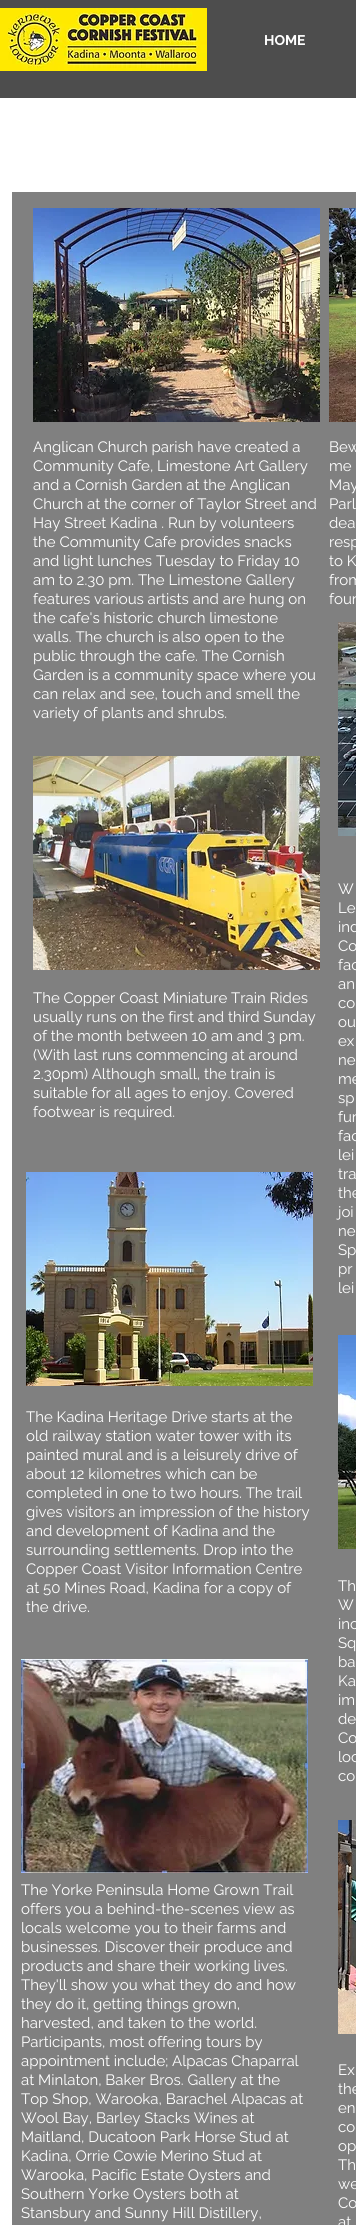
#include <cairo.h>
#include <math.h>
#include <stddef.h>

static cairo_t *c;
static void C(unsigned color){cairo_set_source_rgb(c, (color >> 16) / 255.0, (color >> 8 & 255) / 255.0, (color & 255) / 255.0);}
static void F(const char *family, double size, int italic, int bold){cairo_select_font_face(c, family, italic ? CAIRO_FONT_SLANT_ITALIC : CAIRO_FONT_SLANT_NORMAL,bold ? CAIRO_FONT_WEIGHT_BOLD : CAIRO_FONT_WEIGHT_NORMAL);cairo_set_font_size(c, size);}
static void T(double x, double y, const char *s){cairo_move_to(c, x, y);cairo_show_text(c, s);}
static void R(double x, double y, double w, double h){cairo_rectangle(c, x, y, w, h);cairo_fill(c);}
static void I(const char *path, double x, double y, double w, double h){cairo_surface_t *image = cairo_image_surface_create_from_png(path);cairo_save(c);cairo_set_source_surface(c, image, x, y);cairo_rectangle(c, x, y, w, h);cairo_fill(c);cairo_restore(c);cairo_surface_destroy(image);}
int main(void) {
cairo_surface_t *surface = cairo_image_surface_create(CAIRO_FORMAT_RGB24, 356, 2225);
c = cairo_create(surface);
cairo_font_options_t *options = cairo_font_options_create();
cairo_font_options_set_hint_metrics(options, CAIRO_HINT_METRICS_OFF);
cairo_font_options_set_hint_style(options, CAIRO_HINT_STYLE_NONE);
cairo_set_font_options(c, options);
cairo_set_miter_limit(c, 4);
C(0xffffff);
cairo_paint(c);
C(0x4d4d4d);
R(0,0,356,98);
I("1.png",0,8,207,63);
F("Raleway",14,0,1);
C(0xffffff);
T(264,45,"HOME");
C(0x808080);
R(12,192,344,2033);
I("2.png",33,208,287,214);
I("3.png",329,208,27,214);
F("Raleway",15,0,0);
C(0xffffff);
T(33,452,"Anglican Church parish have created a");
T(33,471,"Community Cafe, Limestone Art Gallery");
T(33,490,"and a Cornish Garden at the Anglican");
T(33,509,"Church at the corner of Taylor Street and");
T(33,528,"Hay Street Kadina . Run by volunteers");
T(33,547,"the Community Cafe provides snacks");
T(33,566,"and light lunches Tuesday to Friday 10");
T(33,585,"am to 2.30 pm. The Limestone Gallery");
T(33,604,"features various artists and are hung on");
T(33,623,"the cafe's historic church limestone");
T(33,642,"walls. The church is also open to the");
T(33,661,"public through the cafe. The Cornish");
T(33,680,"Garden is a community space where you");
T(33,699,"can relax and see, touch and smell the");
T(33,718,"variety of plants and shrubs.");
T(329,452,"Bew");
T(329,471,"me");
T(329,490,"May");
T(329,509,"Parl");
T(329,528,"dea");
T(329,547,"resp");
T(329,566,"to K");
T(329,585,"from");
T(329,604,"foun");
I("4.png",338,622,18,214);
I("5.png",33,756,287,214);
T(338,894,"W");
T(338,913,"Le");
T(338,932,"ind");
T(338,951,"Co");
T(338,970,"fac");
T(338,989,"an");
T(338,1008,"co");
T(338,1027,"ou");
T(338,1046,"ex");
T(338,1065,"ne");
T(338,1084,"me");
T(338,1103,"sp");
T(338,1122,"fun");
T(338,1141,"fac");
T(338,1160,"lei");
T(338,1179,"tra");
T(338,1198,"the");
T(338,1217,"joi");
T(338,1236,"ne");
T(338,1255,"Sp");
T(338,1274,"pr");
T(338,1293,"lei");
T(33,1003,"The Copper Coast Miniature Train Rides");
T(33,1022,"usually runs on the first and third Sunday");
T(33,1041,"of the month between 10 am and 3 pm.");
T(33,1060,"(With last runs commencing at around");
T(33,1079,"2.30pm) Although small, the train is");
T(33,1098,"suitable for all ages to enjoy. Covered");
T(33,1117,"footwear is required.");
I("6.png",26,1172,287,214);
T(26,1422,"The Kadina Heritage Drive starts at the");
T(26,1441,"old railway station water tower with its");
T(26,1460,"painted mural and is a leisurely drive of");
T(26,1479,"about 12 kilometres which can be");
T(26,1498,"completed in one to two hours. The trail");
T(26,1517,"gives visitors an impression of the history");
T(26,1536,"and development of Kadina and the");
T(26,1555,"surrounding settlements. Drop into the");
T(26,1574,"Copper Coast Visitor Information Centre");
T(26,1593,"at 50 Mines Road, Kadina for a copy of");
T(26,1612,"the drive.");
I("7.png",338,1335,18,214);
I("8.png",21,1659,287,214);
T(338,1591,"Th");
T(338,1610,"W");
T(338,1629,"inc");
T(338,1648,"Sq");
T(338,1667,"ba");
T(338,1686,"Ka");
T(338,1705,"im");
T(338,1724,"de");
T(338,1743,"Co");
T(338,1762,"loc");
T(338,1781,"co");
T(21,1895,"The Yorke Peninsula Home Grown Trail");
T(21,1914,"offers you a behind-the-scenes view as");
T(21,1933,"locals welcome you to their farms and");
T(21,1952,"businesses. Discover their produce and");
T(21,1971,"products and share their working lives.");
T(21,1990,"They'll show you what they do and how");
T(21,2009,"they do it, getting things grown,");
T(21,2028,"harvested, and taken to the world.");
T(21,2047,"Participants, most offering tours by");
T(21,2066,"appointment include; Alpacas Chaparral");
T(21,2085,"at Minlaton, Baker Bros. Gallery at the");
T(21,2104,"Top Shop, Warooka, Barachel Alpacas at");
T(21,2123,"Wool Bay, Barley Stacks Wines at");
T(21,2142,"Maitland, Ducatoon Park Horse Stud at");
T(21,2161,"Kadina, Orrie Cowie Merino Stud at");
T(21,2180,"Warooka, Pacific Estate Oysters and");
T(21,2199,"Southern Yorke Oysters both at");
T(21,2218,"Stansbury and Sunny Hill Distillery,");
I("9.png",338,1820,18,214);
T(338,2075,"Ex");
T(338,2094,"the");
T(338,2113,"en");
T(338,2132,"co");
T(338,2151,"op");
T(338,2170,"Th");
T(338,2189,"we");
T(338,2208,"Co");
T(338,2227,"at");
cairo_surface_write_to_png(surface, "o.png");
cairo_font_options_destroy(options);
cairo_destroy(c);
cairo_surface_destroy(surface);
return 0;
}
